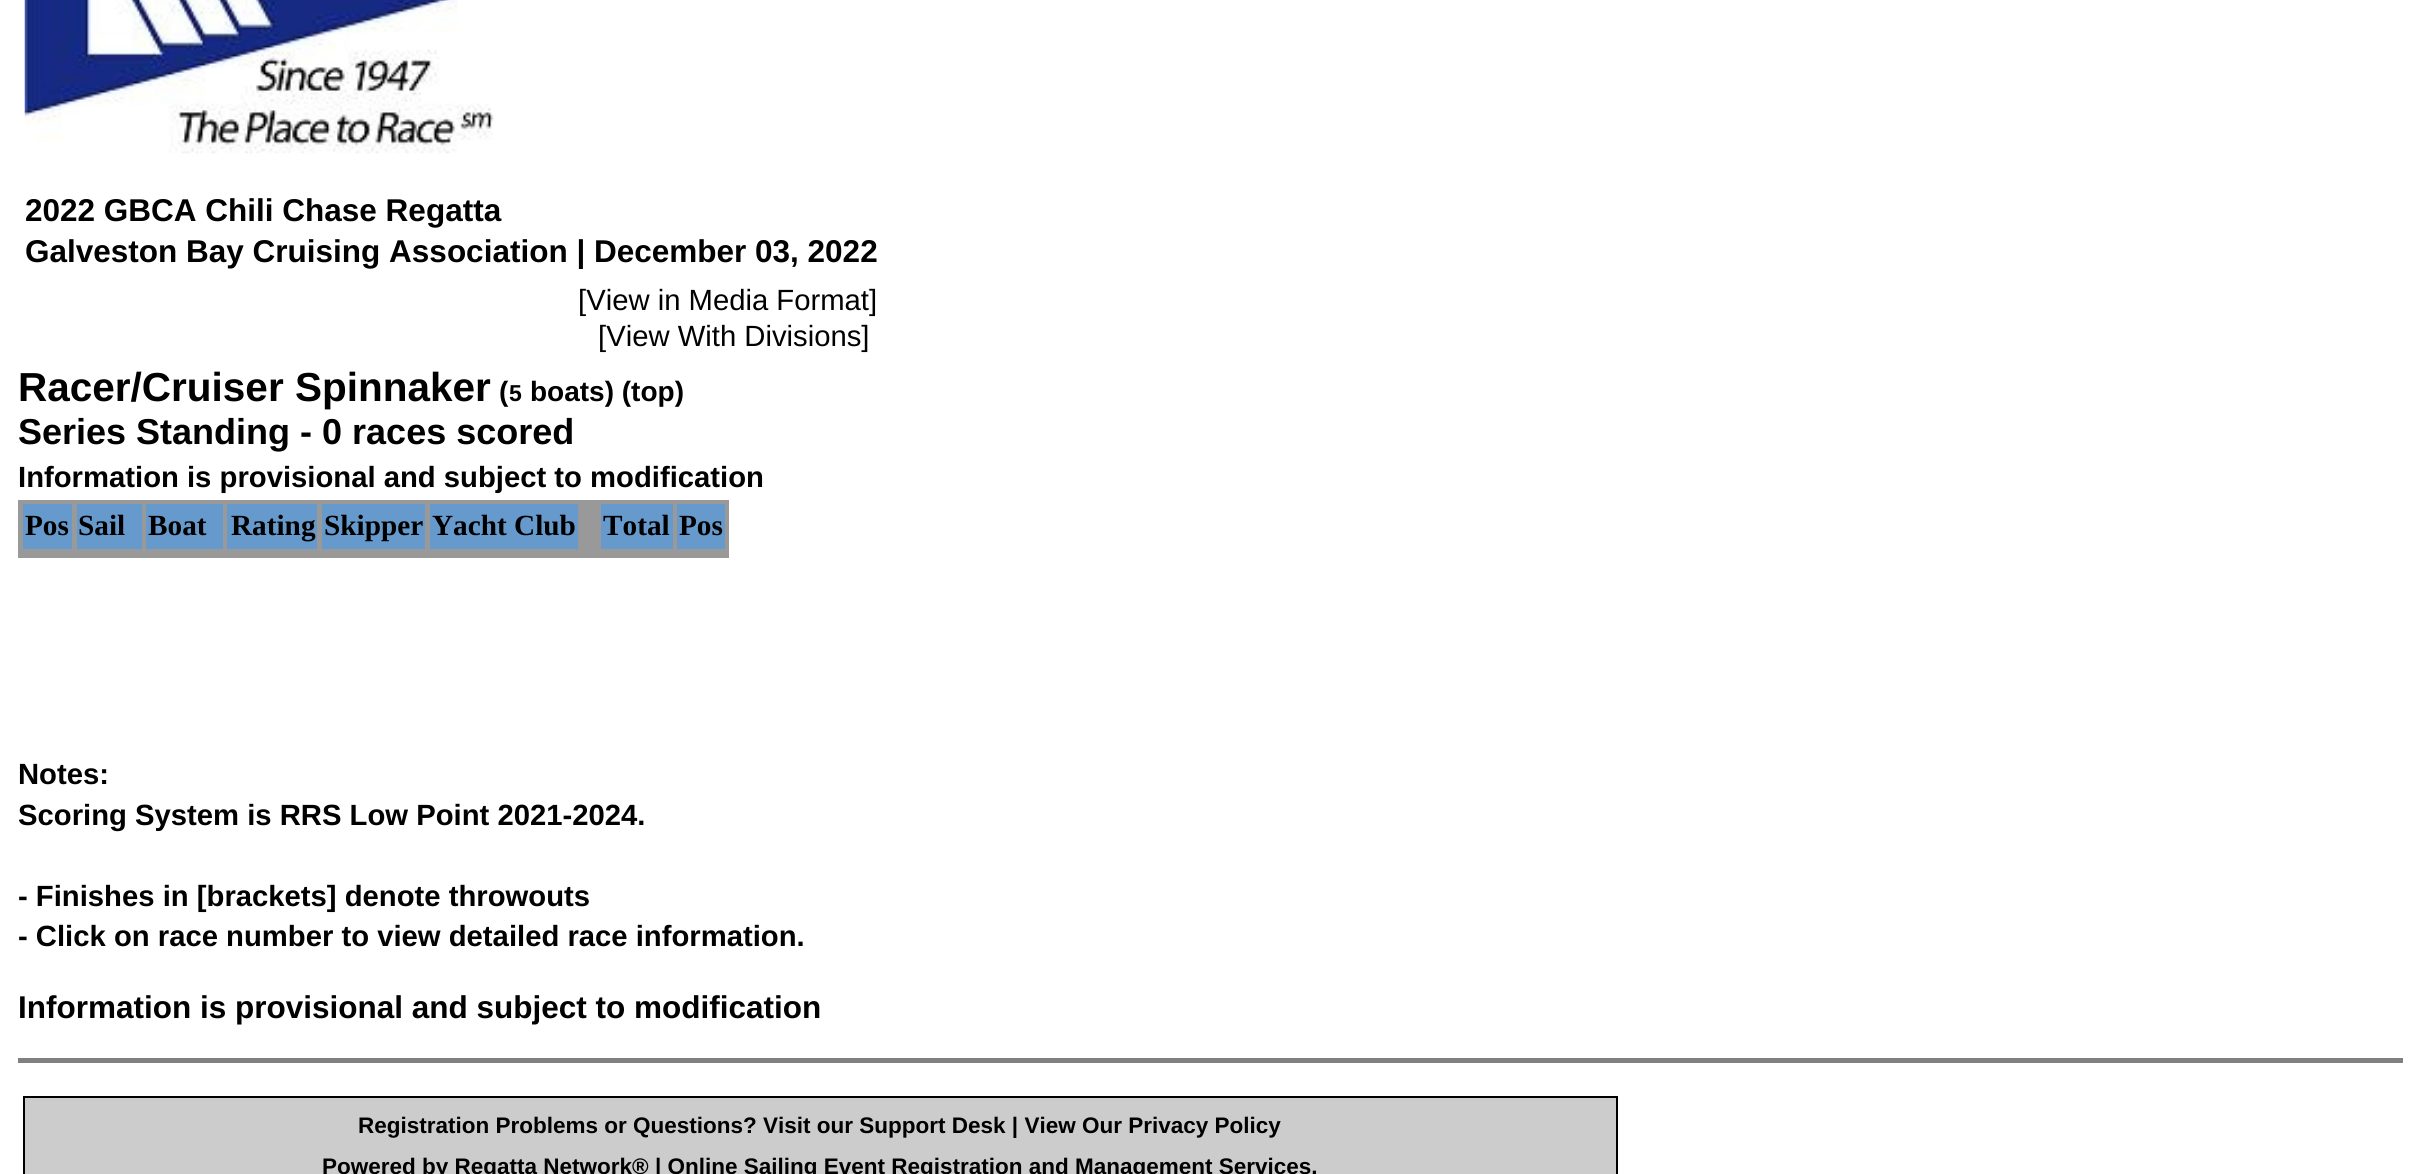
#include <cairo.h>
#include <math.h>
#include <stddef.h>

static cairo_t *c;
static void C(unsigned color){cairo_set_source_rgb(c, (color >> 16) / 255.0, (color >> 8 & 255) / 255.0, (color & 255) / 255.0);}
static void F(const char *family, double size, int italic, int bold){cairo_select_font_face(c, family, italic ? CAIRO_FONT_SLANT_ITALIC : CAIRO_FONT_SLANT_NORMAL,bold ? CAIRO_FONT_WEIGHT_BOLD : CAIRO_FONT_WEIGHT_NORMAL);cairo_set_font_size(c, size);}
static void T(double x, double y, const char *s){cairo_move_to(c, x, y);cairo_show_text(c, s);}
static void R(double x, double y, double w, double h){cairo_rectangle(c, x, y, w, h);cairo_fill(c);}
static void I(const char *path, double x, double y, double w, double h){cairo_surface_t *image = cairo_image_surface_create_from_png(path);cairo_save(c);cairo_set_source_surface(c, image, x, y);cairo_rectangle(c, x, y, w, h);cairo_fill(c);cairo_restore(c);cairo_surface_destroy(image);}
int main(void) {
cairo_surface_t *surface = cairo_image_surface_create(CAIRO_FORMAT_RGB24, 2416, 1174);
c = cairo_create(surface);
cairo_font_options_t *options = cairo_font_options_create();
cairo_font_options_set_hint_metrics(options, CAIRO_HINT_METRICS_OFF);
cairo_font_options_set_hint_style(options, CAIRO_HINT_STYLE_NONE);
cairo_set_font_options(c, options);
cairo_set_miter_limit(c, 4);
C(0xffffff);
cairo_paint(c);
I("1.png",24,0,470,154);
F("Liberation Sans",31.5,0,1);
C(0x000000);
T(25,221,"2022 GBCA Chili Chase Regatta");
T(25,262,"Galveston Bay Cruising Association | December 03, 2022");
F("Liberation Sans",29.25,0,0);
T(578,310,"[View in Media Format]");
T(598,346,"[View With Divisions]");
F("Liberation Sans",40.5,0,1);
T(18,401,"Racer/Cruiser Spinnaker");
F("Liberation Sans",28,0,1);
T(499,401,"(");
F("Liberation Sans",23,0,1);
T(509,401,"5");
F("Liberation Sans",28,0,1);
T(530,401,"boats) (top)");
F("Liberation Sans",36,0,1);
T(18,444,"Series Standing - 0 races scored");
F("Liberation Sans",29.25,0,1);
T(18,487,"Information is provisional and subject to modification");
C(0x999999);
R(18,500,711,58);
C(0x6699cc);
R(23,504,49,45);
F("Liberation Serif",29.25,0,1);
C(0x000000);
T(25,535,"Pos");
C(0x6699cc);
R(77,504,65,45);
C(0x000000);
T(78,535,"Sail");
C(0x6699cc);
R(146,504,77,45);
C(0x000000);
T(148,535,"Boat");
C(0x6699cc);
R(227,504,90,45);
C(0x000000);
T(231,535,"Rating");
C(0x6699cc);
R(322,504,103,45);
C(0x000000);
T(324,535,"Skipper");
C(0x6699cc);
R(430,504,148,45);
C(0x000000);
T(432,535,"Yacht Club");
C(0x6699cc);
R(601,504,72,45);
C(0x000000);
T(603,535,"Total");
C(0x6699cc);
R(677,504,48,45);
C(0x000000);
T(679,535,"Pos");
F("Liberation Sans",29.25,0,1);
T(18,784,"Notes:");
T(18,825,"Scoring System is RRS Low Point 2021-2024.");
T(18,906,"- Finishes in [brackets] denote throwouts");
T(18,946,"- Click on race number to view detailed race information.");
F("Liberation Sans",31.5,0,1);
T(18,1018,"Information is provisional and subject to modification");
C(0x808080);
R(18,1058,2385,5);
C(0xcccccc);
cairo_rectangle(c,24,1097,1593,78);
cairo_fill_preserve(c);
C(0x000000);
cairo_stroke(c);
F("Liberation Sans",22.5,0,1);
T(358,1133,"Registration Problems or Questions? Visit our Support Desk | View Our Privacy Policy");
T(322,1174,"Powered by Regatta Network® | Online Sailing Event Registration and Management Services.");
cairo_surface_write_to_png(surface, "o.png");
cairo_font_options_destroy(options);
cairo_destroy(c);
cairo_surface_destroy(surface);
return 0;
}
